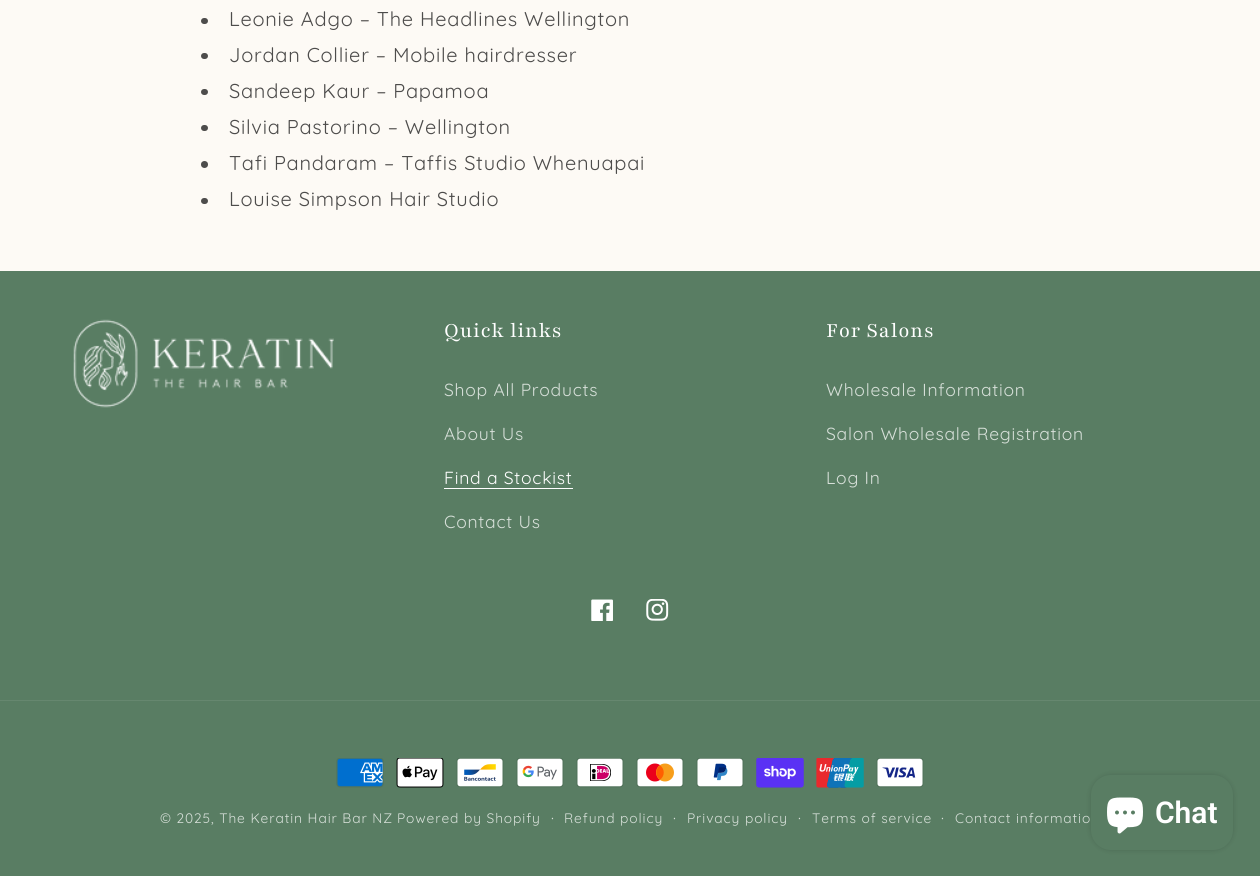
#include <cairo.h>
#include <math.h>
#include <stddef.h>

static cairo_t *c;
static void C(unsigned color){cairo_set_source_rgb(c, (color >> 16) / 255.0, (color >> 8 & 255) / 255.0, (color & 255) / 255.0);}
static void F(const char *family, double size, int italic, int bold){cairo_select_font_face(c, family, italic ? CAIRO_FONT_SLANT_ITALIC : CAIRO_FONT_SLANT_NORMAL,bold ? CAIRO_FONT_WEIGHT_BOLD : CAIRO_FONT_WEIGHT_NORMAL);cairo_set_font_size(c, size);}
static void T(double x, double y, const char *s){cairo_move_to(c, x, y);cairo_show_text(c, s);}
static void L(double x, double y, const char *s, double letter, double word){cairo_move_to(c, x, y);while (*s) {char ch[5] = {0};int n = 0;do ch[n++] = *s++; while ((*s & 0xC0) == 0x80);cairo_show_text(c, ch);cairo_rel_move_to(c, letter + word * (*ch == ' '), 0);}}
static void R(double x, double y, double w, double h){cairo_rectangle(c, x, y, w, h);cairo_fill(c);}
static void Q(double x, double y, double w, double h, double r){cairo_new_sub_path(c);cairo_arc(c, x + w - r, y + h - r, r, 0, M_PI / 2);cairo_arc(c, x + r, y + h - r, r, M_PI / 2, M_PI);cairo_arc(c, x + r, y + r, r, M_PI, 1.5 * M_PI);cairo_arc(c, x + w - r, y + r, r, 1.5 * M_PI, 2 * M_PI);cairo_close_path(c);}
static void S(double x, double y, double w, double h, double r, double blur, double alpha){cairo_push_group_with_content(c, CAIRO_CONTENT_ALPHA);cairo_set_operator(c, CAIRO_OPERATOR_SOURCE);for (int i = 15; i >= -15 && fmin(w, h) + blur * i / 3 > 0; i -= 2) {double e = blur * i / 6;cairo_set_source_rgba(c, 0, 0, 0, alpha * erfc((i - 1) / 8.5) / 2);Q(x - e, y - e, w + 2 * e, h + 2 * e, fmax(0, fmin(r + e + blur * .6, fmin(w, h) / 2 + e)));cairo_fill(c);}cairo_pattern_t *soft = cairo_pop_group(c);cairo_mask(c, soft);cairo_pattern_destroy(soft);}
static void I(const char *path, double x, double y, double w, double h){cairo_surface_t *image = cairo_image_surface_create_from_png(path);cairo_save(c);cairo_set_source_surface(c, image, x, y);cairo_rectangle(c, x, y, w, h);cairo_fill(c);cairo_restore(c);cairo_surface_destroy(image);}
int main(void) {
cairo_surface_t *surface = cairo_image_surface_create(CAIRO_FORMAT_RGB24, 1260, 876);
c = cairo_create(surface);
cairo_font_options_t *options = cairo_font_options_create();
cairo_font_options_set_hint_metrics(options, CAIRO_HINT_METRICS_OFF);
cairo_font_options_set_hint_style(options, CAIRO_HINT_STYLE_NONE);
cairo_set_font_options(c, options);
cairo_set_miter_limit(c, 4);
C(0xfdfaf5);
cairo_paint(c);
C(0x4d4c4b);
Q(201,18,7,6,3);
cairo_fill(c);
F("Quicksand",20,0,0);
L(229,26,"Leonie Adgo – The Headlines Wellington",.75,0);
Q(201,53,7,6,3);
cairo_fill(c);
L(229,62,"Jordan Collier – Mobile hairdresser",.75,0);
Q(201,89,7,6,3);
cairo_fill(c);
L(229,98,"Sandeep Kaur – Papamoa",.75,0);
Q(201,125,7,6,3);
cairo_fill(c);
L(229,134,"Silvia Pastorino – Wellington",.75,0);
cairo_new_path(c);
cairo_arc(c,204.5,164.5,3.5,0,2 * M_PI);
cairo_fill(c);
L(229,170,"Tafi Pandaram – Taffis Studio Whenuapai",.75,0);
Q(201,198,7,6,3);
cairo_fill(c);
L(229,206,"Louise Simpson Hair Studio",.75,0);
C(0x597d63);
R(0,271,1260,605);
I("1.png",73,319,261,89);
F("Playfair",22.5,0,0);
C(0xffffff);
L(444,337,"Quick links",.75,0);
F("Quicksand",17.5,0,0);
C(0xd6dfd8);
L(444,396,"Shop All Products",.75,0);
L(444,440,"About Us",.75,0);
C(0xffffff);
L(444,484,"Find a Stockist",.75,0);
R(444,488,129,1);
C(0xd6dfd8);
L(444,528,"Contact Us",.75,0);
F("Playfair",22.5,0,0);
C(0xffffff);
L(826,337,"For Salons",.75,0);
F("Quicksand",17.5,0,0);
C(0xd6dfd8);
L(826,396,"Wholesale Information",.75,0);
L(826,440,"Salon Wholesale Registration",.75,0);
L(826,484,"Log In",.75,0);
I("2.png",591,599,22,22);
I("3.png",646,599,23,22);
C(0x66876f);
R(0,700,1260,1);
I("4.png",336,758,48,30);
I("5.png",396,758,48,30);
I("6.png",456,758,48,30);
I("7.png",516,758,48,30);
I("8.png",576,758,48,30);
I("9.png",636,758,48,30);
I("10.png",696,758,48,30);
I("11.png",756,758,48,30);
I("12.png",816,758,48,30);
I("13.png",876,758,48,30);
F("Quicksand",13.75,0,0);
C(0xd6dfd8);
L(160,823,"© 2025, The Keratin Hair Bar NZ",.9,0);
L(397,823,"Powered by Shopify",.9,0);
F("Quicksand",15,0,0);
L(551,823,"·",.9,0);
F("Quicksand",13.75,0,0);
L(564,823,"Refund policy",.9,0);
F("Quicksand",15,0,0);
L(673,823,"·",.9,0);
F("Quicksand",13.75,0,0);
L(687,823,"Privacy policy",.9,0);
F("Quicksand",15,0,0);
L(798,823,"·",.9,0);
F("Quicksand",13.75,0,0);
L(812,823,"Terms of service",.9,0);
F("Quicksand",15,0,0);
L(941,823,"·",.9,0);
F("Quicksand",13.75,0,0);
L(955,823,"Contact informatio",.9,0);
C(0x000000);
S(1091,775,142,75,20,3,.15);
C(0x597d63);
Q(1091,775,142,75,20);
cairo_fill(c);
I("14.png",1107,797,36,37);
F("Roboto SemiBold",30,0,0);
C(0xffffff);
T(1155,823,"Chat");
cairo_surface_write_to_png(surface, "o.png");
cairo_font_options_destroy(options);
cairo_destroy(c);
cairo_surface_destroy(surface);
return 0;
}
